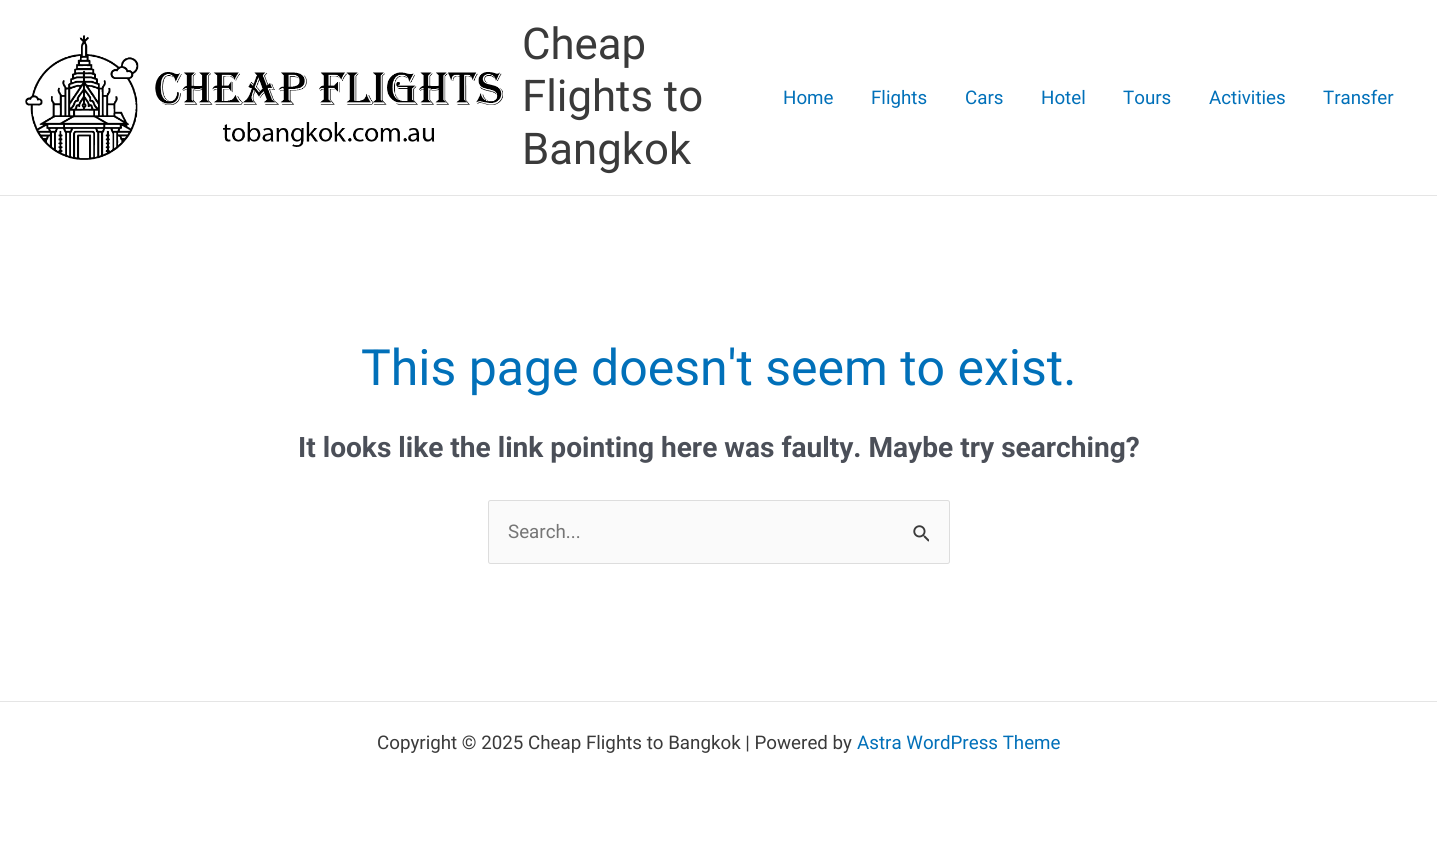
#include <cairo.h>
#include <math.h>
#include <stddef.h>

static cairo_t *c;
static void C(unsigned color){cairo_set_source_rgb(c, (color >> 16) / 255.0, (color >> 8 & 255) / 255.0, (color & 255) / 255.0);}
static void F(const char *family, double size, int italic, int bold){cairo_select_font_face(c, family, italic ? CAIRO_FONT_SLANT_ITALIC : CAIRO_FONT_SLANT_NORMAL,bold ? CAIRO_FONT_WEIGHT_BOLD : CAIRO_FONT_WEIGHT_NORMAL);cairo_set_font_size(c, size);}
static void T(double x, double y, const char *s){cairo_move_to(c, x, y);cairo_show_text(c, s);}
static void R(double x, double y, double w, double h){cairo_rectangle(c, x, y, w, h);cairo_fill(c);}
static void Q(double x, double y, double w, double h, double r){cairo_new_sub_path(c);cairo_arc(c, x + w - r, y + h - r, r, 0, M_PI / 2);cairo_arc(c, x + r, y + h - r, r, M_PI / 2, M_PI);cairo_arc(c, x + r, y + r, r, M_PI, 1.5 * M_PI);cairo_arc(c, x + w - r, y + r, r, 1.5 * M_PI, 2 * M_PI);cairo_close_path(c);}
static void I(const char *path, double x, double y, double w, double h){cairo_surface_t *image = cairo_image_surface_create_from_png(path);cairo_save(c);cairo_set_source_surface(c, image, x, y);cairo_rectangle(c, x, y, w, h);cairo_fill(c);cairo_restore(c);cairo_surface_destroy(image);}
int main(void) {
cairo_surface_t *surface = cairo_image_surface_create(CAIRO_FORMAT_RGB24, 1437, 847);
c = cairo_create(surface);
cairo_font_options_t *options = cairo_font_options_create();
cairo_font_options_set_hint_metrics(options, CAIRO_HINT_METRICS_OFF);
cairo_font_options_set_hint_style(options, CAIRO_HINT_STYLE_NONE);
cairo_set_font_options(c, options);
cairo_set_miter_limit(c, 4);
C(0xffffff);
cairo_paint(c);
C(0xe5e5e5);
R(0,195,1437,1);
I("1.png",25,35,478,125);
F("Roboto",43.75,0,0);
C(0x3a3a3a);
T(522,59,"Cheap");
T(522,111,"Flights to");
T(522,164,"Bangkok");
F("Roboto",18.75,0,0);
C(0x0170b9);
T(783,104,"Home");
T(871,104,"Flights");
T(965,104,"Cars");
T(1041,104,"Hotel");
T(1123,104,"Tours");
T(1209,104,"Activities");
T(1323,104,"Transfer");
F("Roboto",50,0,0);
T(361,385,"This page doesn't seem to exist.");
F("Roboto",28.1,0,1);
C(0x4b4f58);
T(298,457,"It looks like the link pointing here was faulty. Maybe try searching?");
C(0xfafafa);
Q(488.5,500.5,461,63,2);
cairo_fill_preserve(c);
C(0xdddddd);
cairo_set_line_width(c,1);
cairo_stroke(c);
F("Roboto",18.75,0,0);
C(0x757575);
T(508,538,"Search...");
I("2.png",913,525,16,17);
C(0xe5e5e5);
R(0,701,1437,1);
C(0x3a3a3a);
T(377,749,"Copyright © 2025 Cheap Flights to Bangkok | Powered by");
C(0x0170b9);
T(857,749,"Astra WordPress Theme");
cairo_surface_write_to_png(surface, "o.png");
cairo_font_options_destroy(options);
cairo_destroy(c);
cairo_surface_destroy(surface);
return 0;
}
